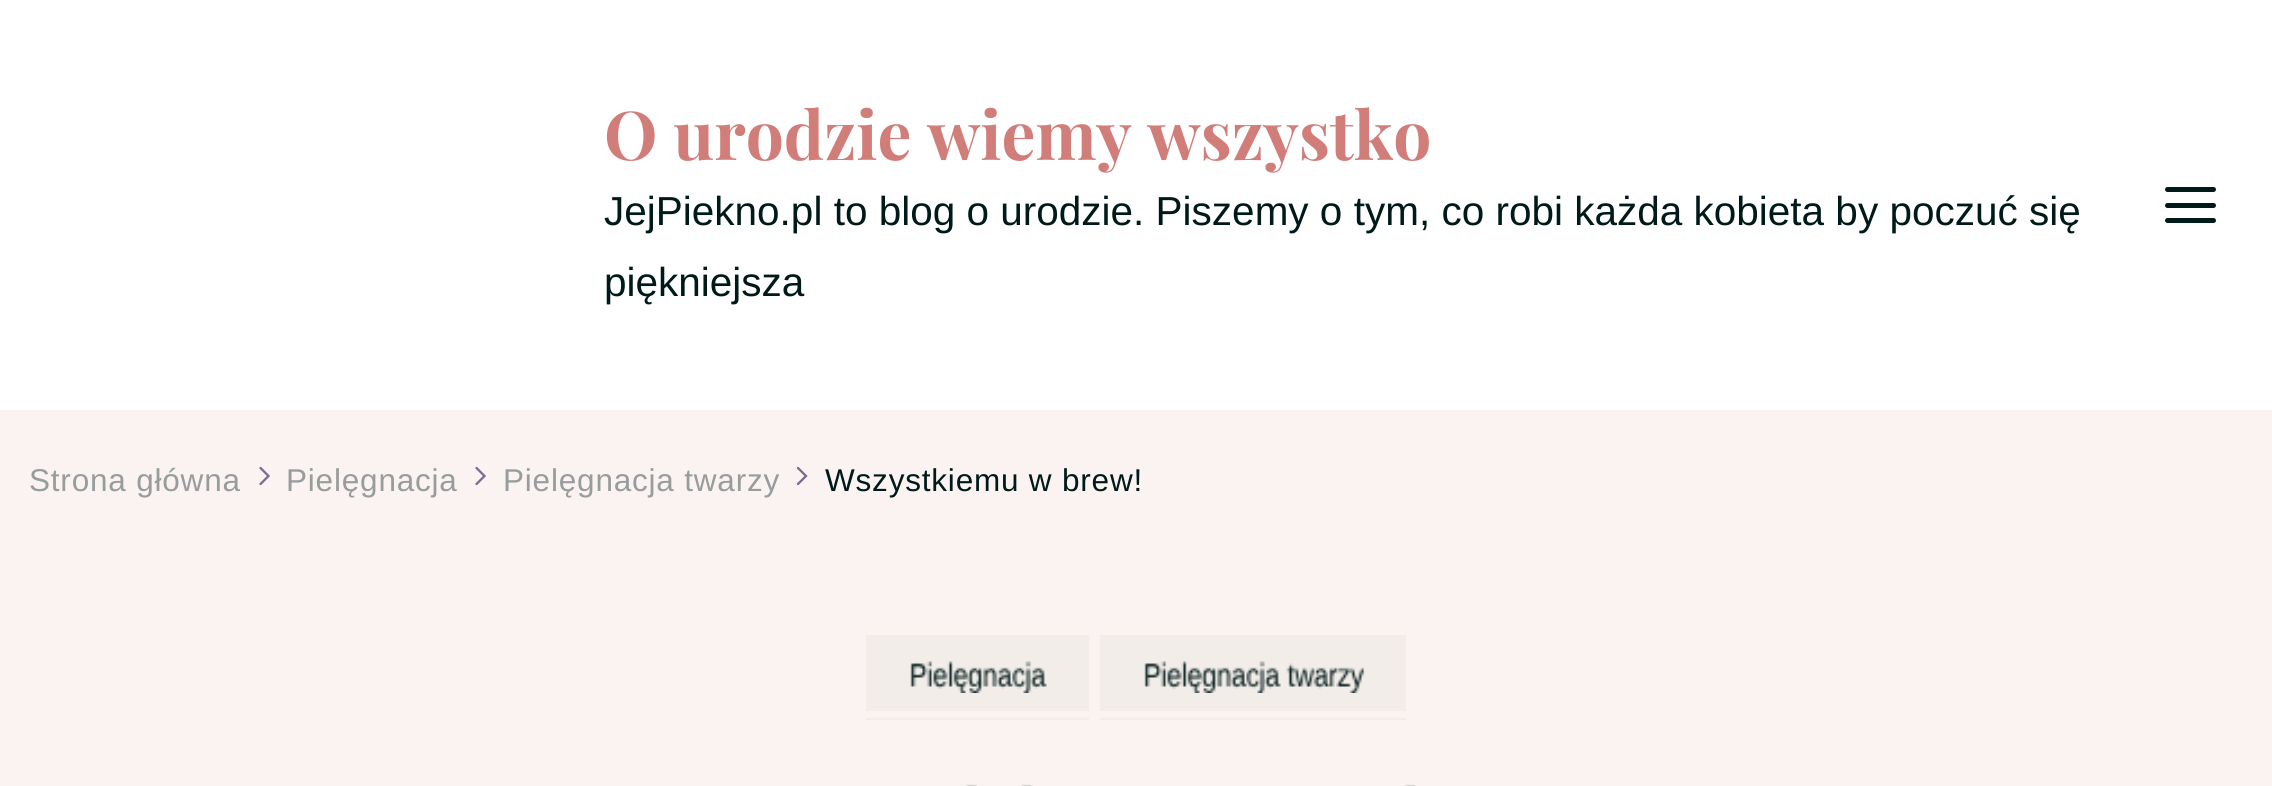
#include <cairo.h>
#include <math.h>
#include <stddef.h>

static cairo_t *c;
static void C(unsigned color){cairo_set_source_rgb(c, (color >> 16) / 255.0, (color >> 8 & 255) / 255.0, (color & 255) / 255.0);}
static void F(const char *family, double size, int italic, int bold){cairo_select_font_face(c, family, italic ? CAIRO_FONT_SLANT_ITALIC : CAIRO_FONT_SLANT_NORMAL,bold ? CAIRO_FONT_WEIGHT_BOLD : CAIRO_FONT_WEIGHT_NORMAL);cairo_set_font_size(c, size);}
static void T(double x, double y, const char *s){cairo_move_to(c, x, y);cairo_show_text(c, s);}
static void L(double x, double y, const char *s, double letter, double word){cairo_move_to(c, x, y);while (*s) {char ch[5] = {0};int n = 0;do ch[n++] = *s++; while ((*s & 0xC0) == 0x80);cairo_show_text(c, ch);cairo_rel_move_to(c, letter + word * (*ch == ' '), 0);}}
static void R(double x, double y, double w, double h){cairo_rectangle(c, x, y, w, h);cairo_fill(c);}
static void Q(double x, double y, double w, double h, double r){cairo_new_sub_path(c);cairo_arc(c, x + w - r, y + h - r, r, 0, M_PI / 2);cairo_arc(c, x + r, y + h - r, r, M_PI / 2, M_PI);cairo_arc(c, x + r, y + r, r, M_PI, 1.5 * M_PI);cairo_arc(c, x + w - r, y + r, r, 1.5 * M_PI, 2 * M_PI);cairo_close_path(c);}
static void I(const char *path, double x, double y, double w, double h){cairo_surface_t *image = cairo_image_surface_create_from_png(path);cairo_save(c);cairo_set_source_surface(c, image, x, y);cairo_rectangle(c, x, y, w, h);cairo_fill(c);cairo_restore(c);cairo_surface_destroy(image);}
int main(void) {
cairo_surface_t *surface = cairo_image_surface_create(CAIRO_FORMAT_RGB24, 2272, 786);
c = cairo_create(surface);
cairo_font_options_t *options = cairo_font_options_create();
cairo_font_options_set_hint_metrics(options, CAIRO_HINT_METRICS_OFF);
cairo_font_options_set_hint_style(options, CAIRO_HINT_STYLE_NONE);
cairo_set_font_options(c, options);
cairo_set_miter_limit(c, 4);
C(0xffffff);
cairo_paint(c);
F("Playfair Display",67.5,0,1);
C(0xd17d79);
T(604,160,"O urodzie wiemy wszystko");
F("Liberation Sans",40.5,0,0);
C(0x001a1a);
T(604,225,"JejPiekno.pl to blog o urodzie. Piszemy o tym, co robi każda kobieta by poczuć się");
T(604,296,"piękniejsza");
Q(2165,187,51,5,2.5);
cairo_fill(c);
Q(2165,203,51,5,2.5);
cairo_fill(c);
Q(2165,218,51,5,2.5);
cairo_fill(c);
C(0xfbf3f2);
R(0,410,2272,376);
F("Liberation Sans",31.5,0,0);
C(0x979c9c);
L(29,491,"Strona główna",.8,0);
cairo_new_path(c);
cairo_move_to(c,260.5,468);
cairo_line_to(c,268.5,476);
cairo_line_to(c,260.5,484);
C(0x7d6a91);
cairo_set_line_width(c,2.3);
cairo_set_line_cap(c,CAIRO_LINE_CAP_ROUND);
cairo_stroke(c);
C(0x979c9c);
L(286,491,"Pielęgnacja",.8,0);
cairo_new_path(c);
cairo_move_to(c,476.5,468);
cairo_line_to(c,484.5,476);
cairo_line_to(c,476.5,484);
C(0x7d6a91);
cairo_stroke(c);
C(0x979c9c);
L(503,491,"Pielęgnacja twarzy",.8,0);
cairo_new_path(c);
cairo_move_to(c,798,468);
cairo_line_to(c,806,476);
cairo_line_to(c,798,484);
C(0x7d6a91);
cairo_stroke(c);
C(0x001a1a);
L(825,491,"Wszystkiemu w brew!",.8,0);
C(0xf2ede9);
R(866,635,223,76);
I("1.png",910,661,137,32);
R(866,718,223,2);
R(1100,635,306,76);
I("1.png",1144,661,137,32);
I("2.png",1286,663,79,30);
R(1100,718,306,2);
I("3.png",965,784,68,2);
I("4.png",1404,784,12,2);
cairo_surface_write_to_png(surface, "o.png");
cairo_font_options_destroy(options);
cairo_destroy(c);
cairo_surface_destroy(surface);
return 0;
}
